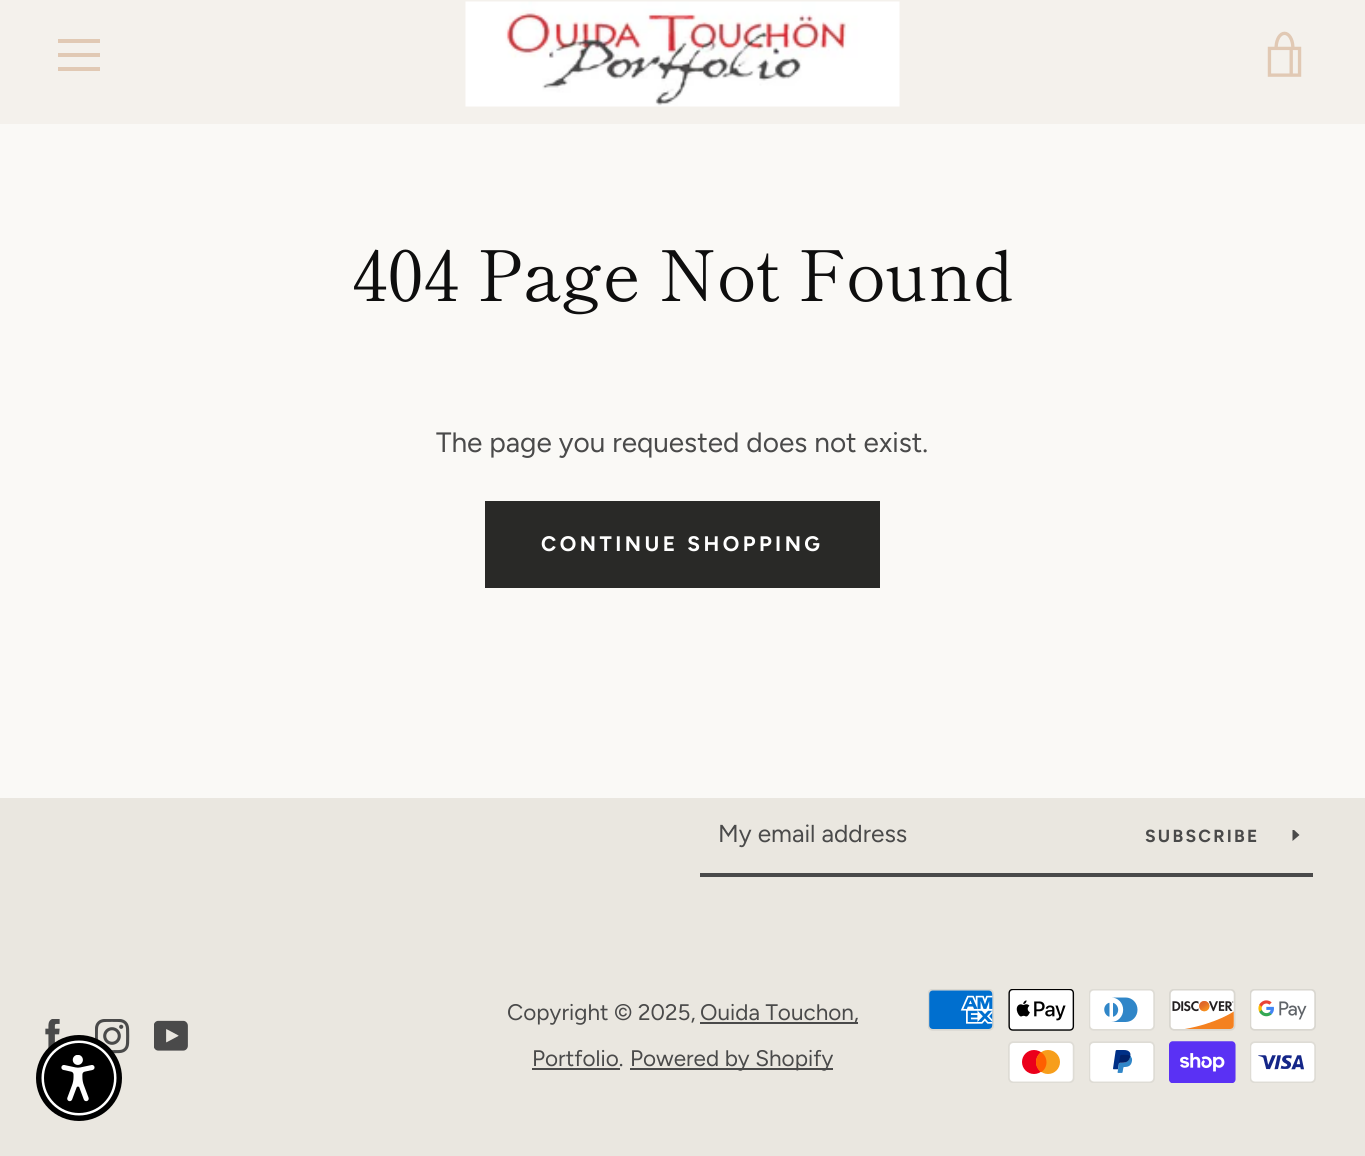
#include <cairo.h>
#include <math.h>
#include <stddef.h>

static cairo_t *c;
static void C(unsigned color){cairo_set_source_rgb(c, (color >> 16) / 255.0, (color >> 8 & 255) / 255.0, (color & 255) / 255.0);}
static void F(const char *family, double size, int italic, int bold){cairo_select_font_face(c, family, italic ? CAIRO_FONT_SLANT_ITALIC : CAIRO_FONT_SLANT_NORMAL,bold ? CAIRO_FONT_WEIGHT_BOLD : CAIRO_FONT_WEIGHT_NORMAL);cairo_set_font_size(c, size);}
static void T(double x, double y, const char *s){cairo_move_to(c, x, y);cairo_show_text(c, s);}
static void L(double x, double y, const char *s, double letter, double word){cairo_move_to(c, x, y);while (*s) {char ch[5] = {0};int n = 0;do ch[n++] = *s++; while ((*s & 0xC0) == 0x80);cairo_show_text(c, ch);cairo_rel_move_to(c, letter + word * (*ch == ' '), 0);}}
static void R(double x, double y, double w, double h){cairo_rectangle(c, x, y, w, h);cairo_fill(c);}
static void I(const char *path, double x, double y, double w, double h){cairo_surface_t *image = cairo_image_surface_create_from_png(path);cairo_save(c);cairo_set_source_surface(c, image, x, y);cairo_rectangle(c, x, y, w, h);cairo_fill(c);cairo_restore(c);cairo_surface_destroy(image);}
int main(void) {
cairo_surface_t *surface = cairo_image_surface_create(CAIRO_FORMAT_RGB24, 1365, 1156);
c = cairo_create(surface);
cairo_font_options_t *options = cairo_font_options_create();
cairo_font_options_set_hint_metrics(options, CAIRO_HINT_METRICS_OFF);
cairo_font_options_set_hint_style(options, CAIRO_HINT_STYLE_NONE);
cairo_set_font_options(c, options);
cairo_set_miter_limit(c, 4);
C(0xeae7e0);
cairo_paint(c);
C(0xf4f1ec);
R(0,0,1365,124);
C(0xe1c9b4);
R(58,39,42,4);
R(58,53,42,4);
R(58,67,42,4);
I("1.png",465,1,435,106);
I("2.png",1267,31,35,46);
I("4.png",45,1019,15,30);
I("5.png",95,1019,35,35);
C(0x000000);
cairo_arc(c,79,1078,43,0,2 * M_PI);
cairo_fill(c);
C(0xffffff);
cairo_arc(c,79,1078,37.5,0,2 * M_PI);
cairo_fill(c);
C(0x000000);
cairo_arc(c,79,1078,35,0,2 * M_PI);
cairo_fill(c);
I("3.png",61,1055,34,47);
C(0xfaf9f6);
R(0,124,1365,674);
F("Shippori Mincho",70,0,0);
C(0x0e0e0e);
T(352,301,"404 Page Not Found");
F("Figtree",28,0,0);
C(0x4a4a4a);
T(436,452,"The page you requested does not exist.");
C(0x292927);
R(485,501,395,87);
F("Figtree",21,0,1);
C(0xffffff);
L(541,551,"CONTINUE SHOPPING",3.5,0);
C(0x4a4a4a);
R(700,873,613,4);
F("Figtree",24.5,0,0);
T(718,842,"My email address");
F("Figtree",17.5,0,1);
L(1145,842,"SUBSCRIBE",2.25,0);
cairo_save(c);
cairo_rectangle(c,1265,830,35,12);
cairo_clip(c);
cairo_new_path(c);
cairo_move_to(c,1299.5,835);
cairo_line_to(c,1292.5,841);
cairo_line_to(c,1292.5,828.5);
cairo_close_path(c);
cairo_fill(c);
cairo_restore(c);
I("6.png",154,1020,34,31);
F("Figtree",22.5,0,0);
T(507,1020,"Copyright © 2025,");
R(700,1022,158,2);
T(700,1020,"Ouida Touchon,");
T(532,1066,"Portfolio.");
R(532,1068,88,2);
R(630,1068,203,2);
T(630,1066,"Powered by Shopify");
I("7.png",928,989,66,42);
I("8.png",1008,989,67,42);
I("9.png",1089,989,66,42);
I("10.png",1169,989,67,42);
I("11.png",1250,989,66,42);
I("12.png",1008,1041,67,42);
I("13.png",1089,1041,66,42);
I("14.png",1169,1041,67,42);
I("15.png",1250,1041,66,42);
cairo_surface_write_to_png(surface, "o.png");
cairo_font_options_destroy(options);
cairo_destroy(c);
cairo_surface_destroy(surface);
return 0;
}
